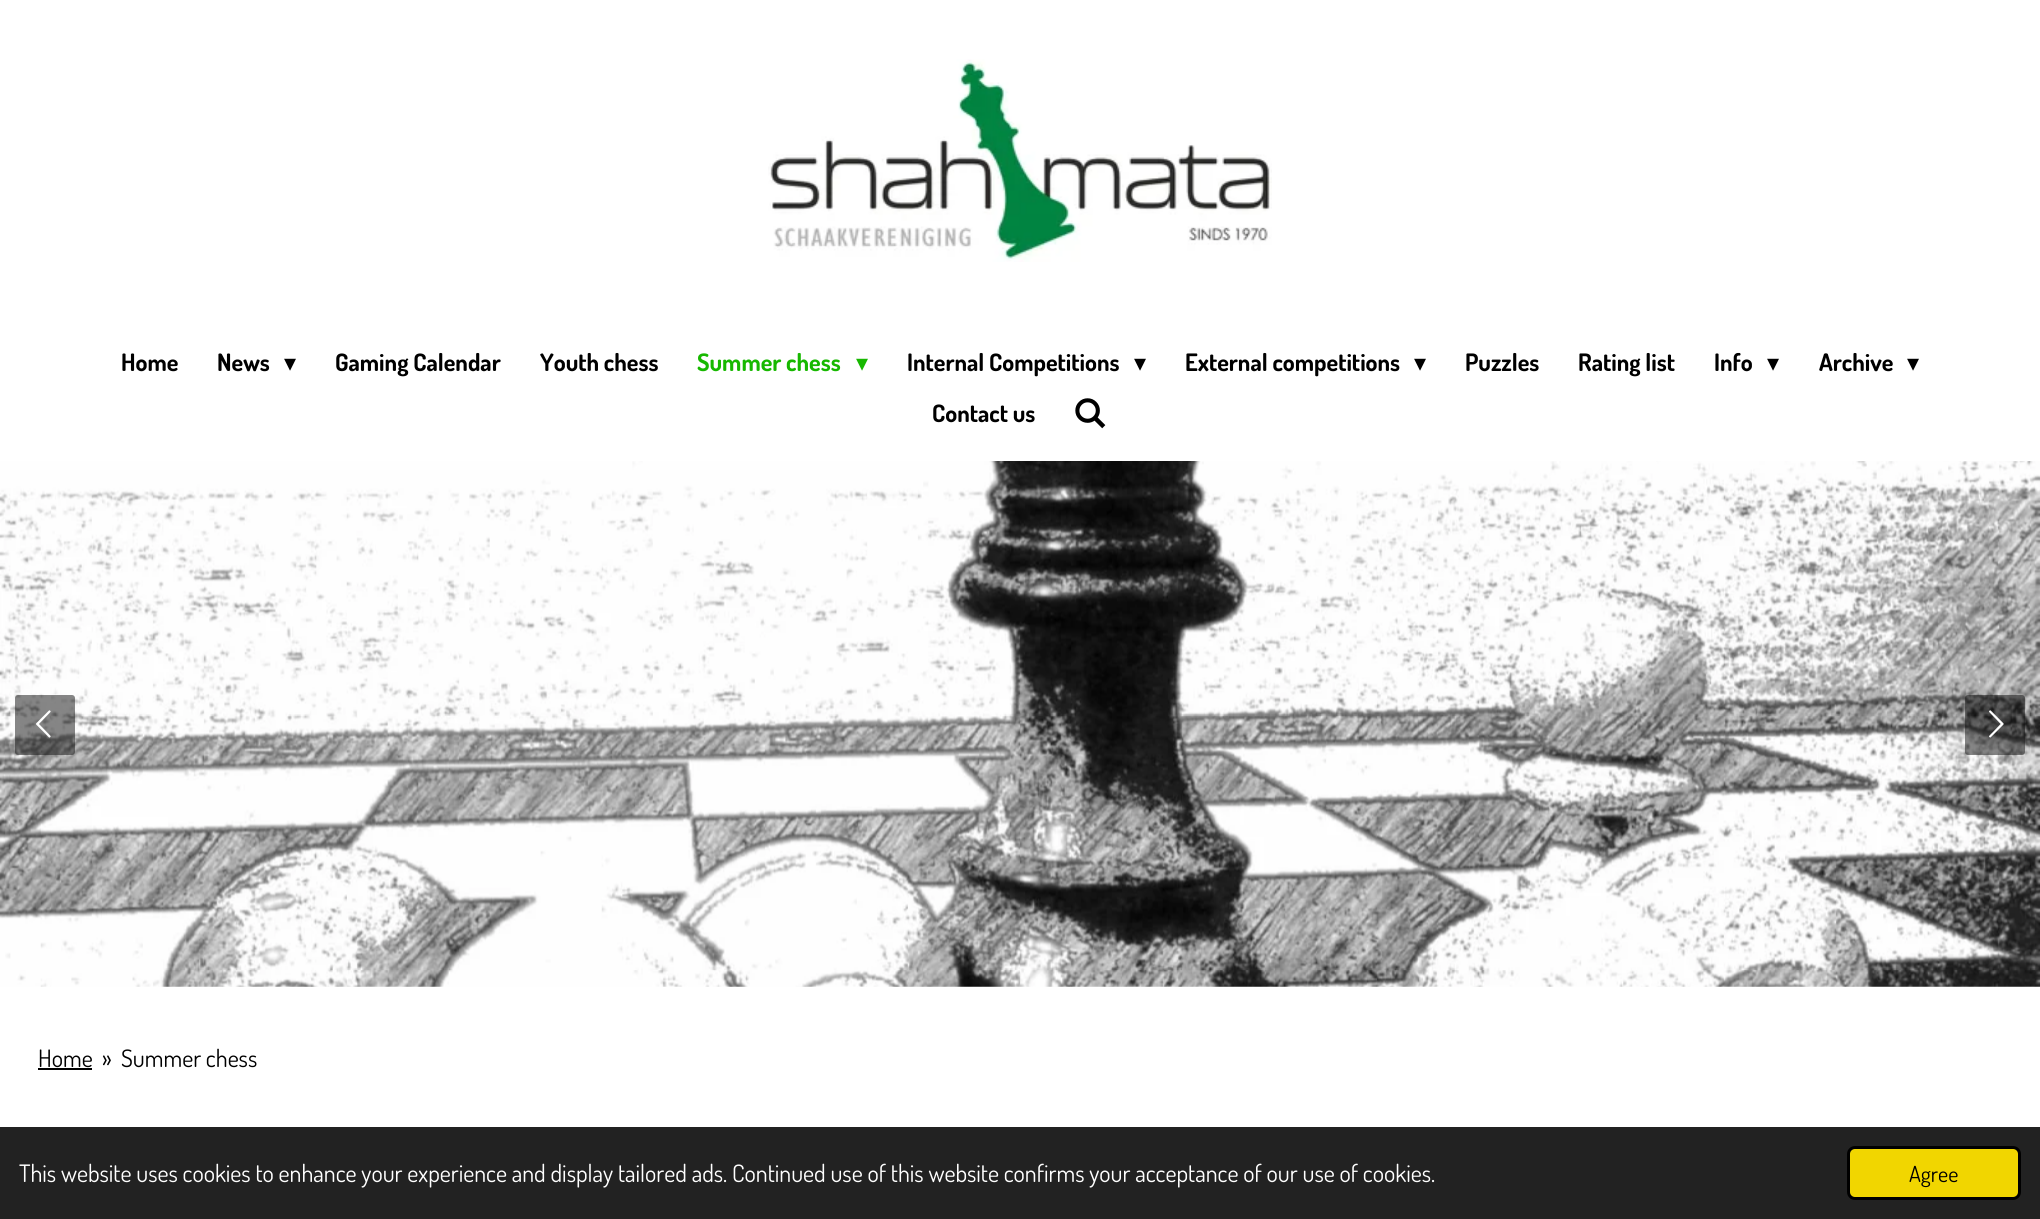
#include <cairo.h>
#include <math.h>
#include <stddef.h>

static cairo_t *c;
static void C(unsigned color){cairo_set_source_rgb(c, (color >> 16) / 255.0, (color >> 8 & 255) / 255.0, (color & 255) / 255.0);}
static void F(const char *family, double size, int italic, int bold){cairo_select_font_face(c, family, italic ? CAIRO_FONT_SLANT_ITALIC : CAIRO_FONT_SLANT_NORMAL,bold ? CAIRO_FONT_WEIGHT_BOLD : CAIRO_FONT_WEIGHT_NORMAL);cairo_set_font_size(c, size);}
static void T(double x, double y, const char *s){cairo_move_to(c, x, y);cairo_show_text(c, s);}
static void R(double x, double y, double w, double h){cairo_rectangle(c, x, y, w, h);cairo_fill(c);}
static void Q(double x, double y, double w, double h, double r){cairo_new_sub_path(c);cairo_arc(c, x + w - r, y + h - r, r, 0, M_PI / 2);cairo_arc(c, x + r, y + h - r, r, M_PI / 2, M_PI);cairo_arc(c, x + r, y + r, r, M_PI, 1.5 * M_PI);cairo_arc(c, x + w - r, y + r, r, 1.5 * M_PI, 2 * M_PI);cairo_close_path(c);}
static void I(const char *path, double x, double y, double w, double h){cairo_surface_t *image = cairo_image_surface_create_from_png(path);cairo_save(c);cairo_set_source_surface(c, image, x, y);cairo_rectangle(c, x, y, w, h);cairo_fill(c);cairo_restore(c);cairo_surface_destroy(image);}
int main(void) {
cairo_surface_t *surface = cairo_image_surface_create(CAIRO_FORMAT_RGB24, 2040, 1219);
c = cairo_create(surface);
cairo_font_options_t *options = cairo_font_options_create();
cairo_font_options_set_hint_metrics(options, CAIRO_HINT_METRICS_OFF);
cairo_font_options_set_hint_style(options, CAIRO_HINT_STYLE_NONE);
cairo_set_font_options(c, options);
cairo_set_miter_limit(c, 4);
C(0xffffff);
cairo_paint(c);
I("1.png",768,59,504,203);
F("Dosis",24,0,1);
C(0x000000);
T(121,371,"Home");
T(217,371,"News");
F("DejaVu Sans",24,0,0);
T(284,371,"▾");
F("Dosis",24,0,1);
T(335,371,"Gaming Calendar");
T(540,371,"Youth chess");
C(0x17b800);
T(697,371,"Summer chess");
F("DejaVu Sans",24,0,0);
T(856,371,"▾");
F("Dosis",24,0,1);
C(0x000000);
T(907,371,"Internal Competitions");
F("DejaVu Sans",24,0,0);
T(1134,371,"▾");
F("Dosis",24,0,1);
T(1185,371,"External competitions");
F("DejaVu Sans",24,0,0);
T(1414,371,"▾");
F("Dosis",24,0,1);
T(1465,371,"Puzzles");
T(1578,371,"Rating list");
T(1714,371,"Info");
F("DejaVu Sans",24,0,0);
T(1767,371,"▾");
F("Dosis",24,0,1);
T(1819,371,"Archive");
F("DejaVu Sans",24,0,0);
T(1907,371,"▾");
F("Dosis",24,0,1);
T(932,422,"Contact us");
I("2.png",1075,398,31,31);
I("3.png",0,461,2040,526);
cairo_set_source_rgba(c,0.059,0.059,0.059,0.5);
Q(15,695,60,60,3);
cairo_fill(c);
I("4.png",36,710,15,28);
Q(1965,695,60,60,3);
cairo_fill(c);
I("5.png",1989,710,15,28);
F("Dosis",24,0,0);
C(0x000000);
T(38,1067,"Home");
R(38,1068,54,2);
T(102,1067,"»");
T(121,1067,"Summer chess");
C(0x222222);
R(0,1127,2040,92);
C(0xffffff);
T(19,1182,"This website uses cookies to enhance your experience and display tailored ads. Continued use of this website confirms your acceptance of our use of cookies.");
C(0xf1d600);
Q(1848.5,1147.5,171,51,6.5);
cairo_fill_preserve(c);
C(0x000000);
cairo_set_line_width(c,3);
cairo_stroke(c);
F("Dosis",22,0,0);
T(1909,1182,"Agree");
cairo_surface_write_to_png(surface, "o.png");
cairo_font_options_destroy(options);
cairo_destroy(c);
cairo_surface_destroy(surface);
return 0;
}
